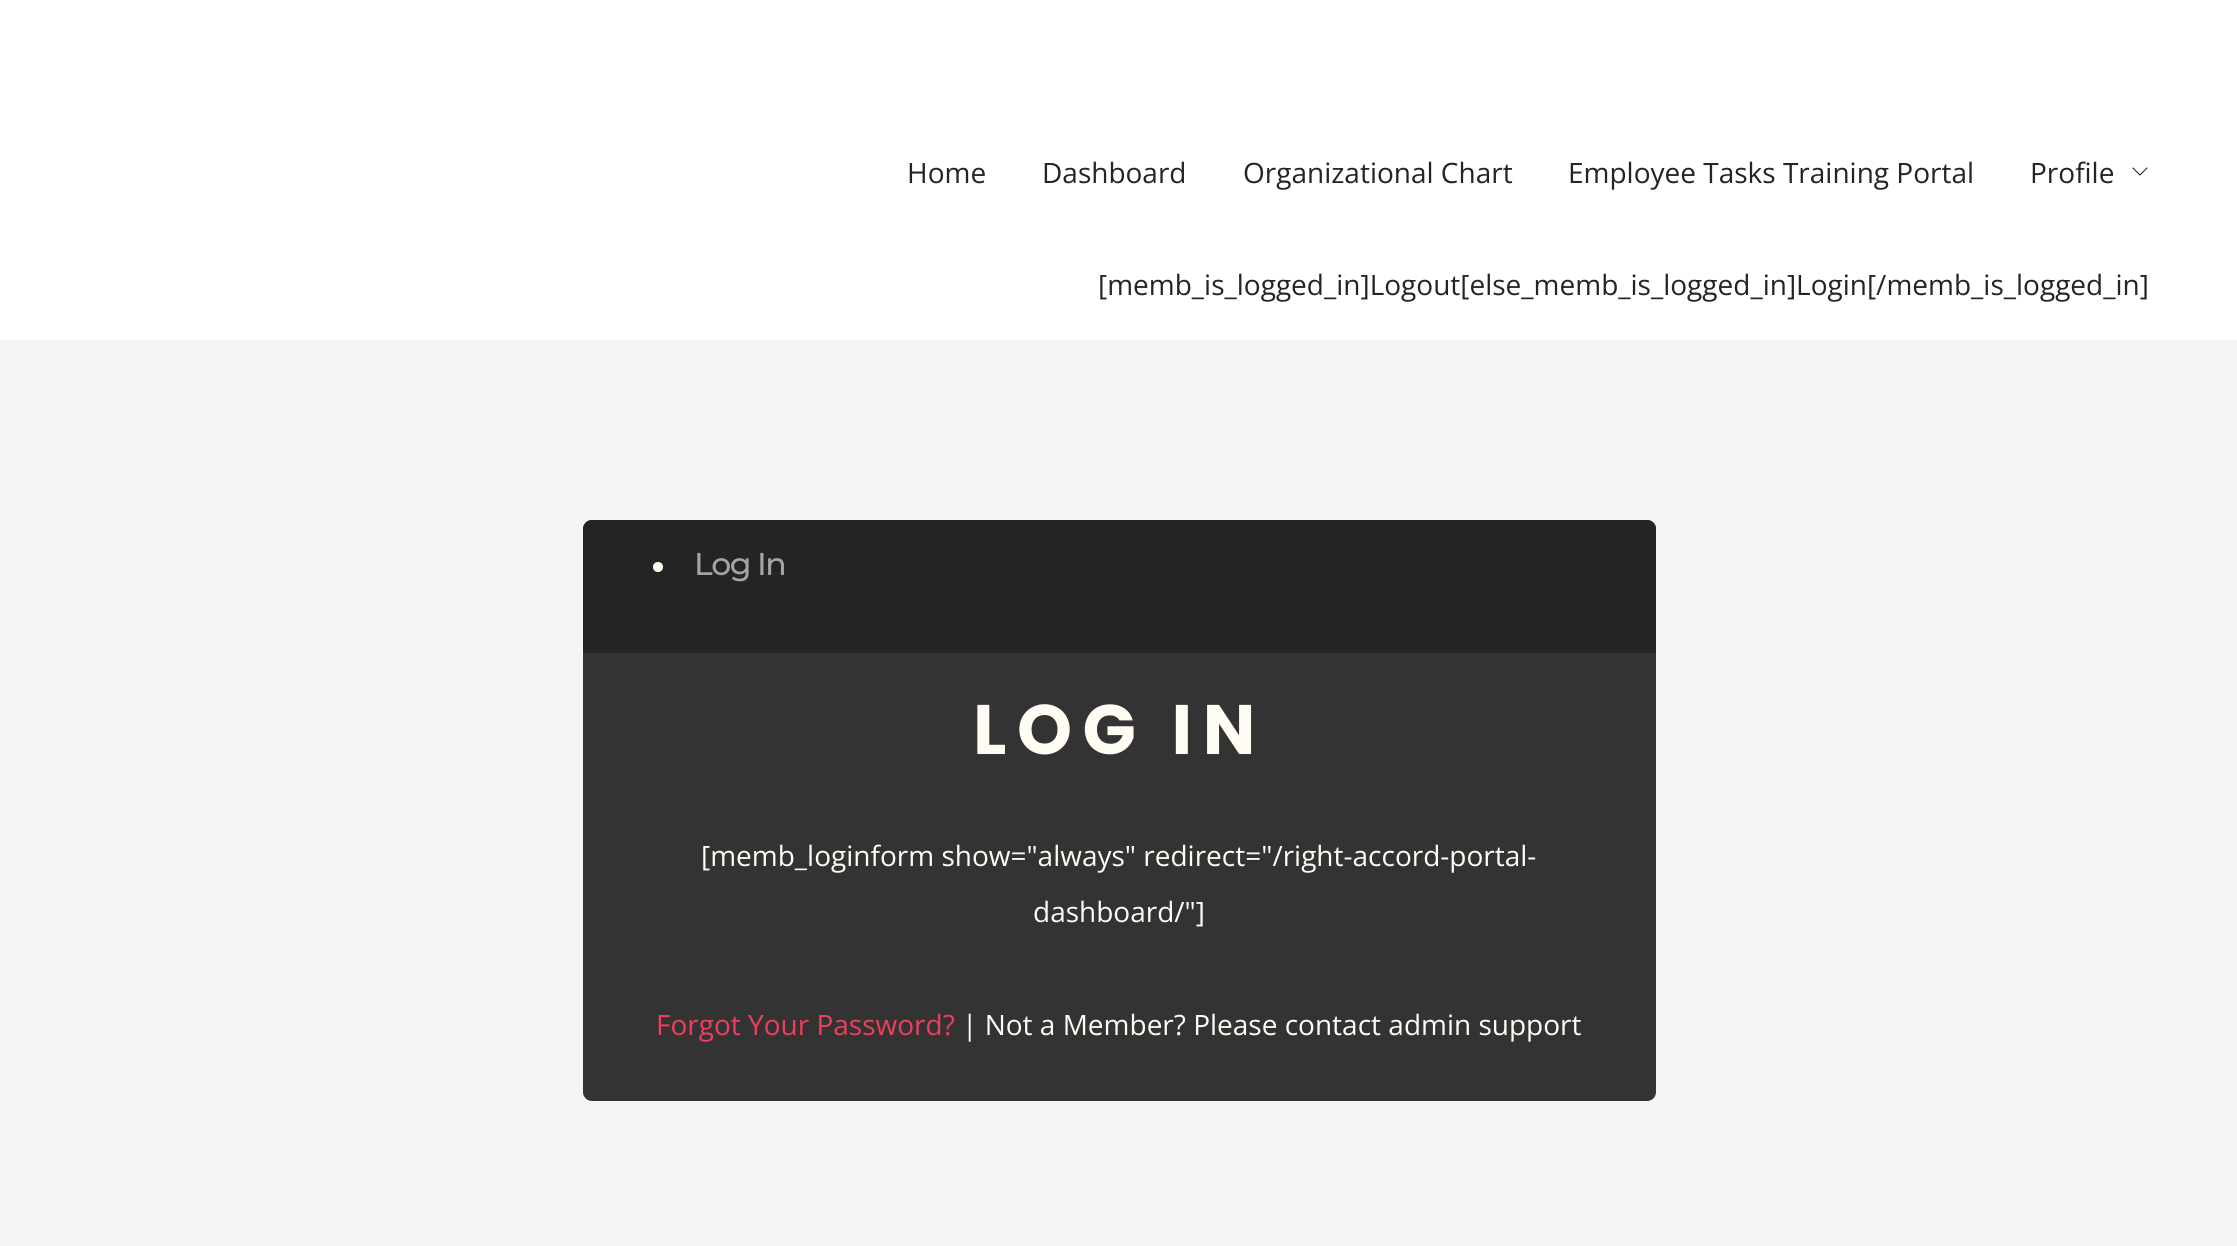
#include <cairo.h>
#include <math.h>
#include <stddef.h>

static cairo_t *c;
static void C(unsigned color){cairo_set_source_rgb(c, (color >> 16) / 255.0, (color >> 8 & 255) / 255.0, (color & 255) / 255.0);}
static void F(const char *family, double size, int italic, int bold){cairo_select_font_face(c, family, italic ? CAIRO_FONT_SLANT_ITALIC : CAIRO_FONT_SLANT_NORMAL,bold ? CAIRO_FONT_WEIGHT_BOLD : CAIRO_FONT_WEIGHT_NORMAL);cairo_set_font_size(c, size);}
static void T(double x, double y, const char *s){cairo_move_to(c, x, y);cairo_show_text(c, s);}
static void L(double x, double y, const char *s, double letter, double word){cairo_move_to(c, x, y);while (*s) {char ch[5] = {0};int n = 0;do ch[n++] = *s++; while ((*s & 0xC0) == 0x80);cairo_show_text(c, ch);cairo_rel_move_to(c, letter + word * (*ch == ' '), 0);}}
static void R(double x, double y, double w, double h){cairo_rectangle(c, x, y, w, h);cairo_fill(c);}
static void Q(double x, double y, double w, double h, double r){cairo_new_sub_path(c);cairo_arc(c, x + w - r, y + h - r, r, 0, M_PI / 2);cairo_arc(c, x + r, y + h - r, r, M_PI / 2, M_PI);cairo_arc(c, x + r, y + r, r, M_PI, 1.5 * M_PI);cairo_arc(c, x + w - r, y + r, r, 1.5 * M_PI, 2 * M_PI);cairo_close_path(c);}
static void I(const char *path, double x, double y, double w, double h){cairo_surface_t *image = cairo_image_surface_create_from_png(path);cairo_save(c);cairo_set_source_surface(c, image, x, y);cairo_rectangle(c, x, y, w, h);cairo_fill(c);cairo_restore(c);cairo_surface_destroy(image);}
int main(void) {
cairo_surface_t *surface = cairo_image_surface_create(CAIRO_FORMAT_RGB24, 2237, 1246);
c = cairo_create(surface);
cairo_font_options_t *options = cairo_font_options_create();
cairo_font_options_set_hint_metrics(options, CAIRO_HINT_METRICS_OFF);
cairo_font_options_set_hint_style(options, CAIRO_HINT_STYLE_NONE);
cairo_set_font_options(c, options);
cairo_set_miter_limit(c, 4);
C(0xffffff);
cairo_paint(c);
F("Open Sans",28,0,0);
C(0x242424);
T(907,183,"Home");
T(1042,183,"Dashboard");
T(1243,183,"Organizational Chart");
T(1568,183,"Employee Tasks Training Portal");
T(2030,183,"Profile");
I("1.png",2132,167,16,9);
T(1098,295,"[memb_is_logged_in]Logout[else_memb_is_logged_in]Login[/memb_is_logged_in]");
C(0xf5f5f5);
R(0,340,2237,906);
C(0x333333);
Q(583,520,1073,581,9);
cairo_fill(c);
C(0x242424);
cairo_new_path(c);
cairo_move_to(c,592,520);
cairo_line_to(c,1647,520);
cairo_curve_to(c,1652,520,1656,524,1656,529);
cairo_line_to(c,1656,653);
cairo_line_to(c,583,653);
cairo_line_to(c,583,529);
cairo_curve_to(c,583,524,587,520,592,520);
cairo_close_path(c);
cairo_fill(c);
C(0xfffcf3);
cairo_arc(c,658,567,5,0,2 * M_PI);
cairo_fill(c);
F("Montserrat Medium",31.5,0,0);
C(0xa3a4a6);
L(694,575,"Log In",-1.5,0);
F("Poppins",70,0,1);
C(0xfffcf3);
L(973,754,"LOG IN",10.5,0);
F("Open Sans",28,0,0);
T(701,866,"[memb_loginform show=\"always\" redirect=\"/right-accord-portal-");
T(1033,922,"dashboard/\"]");
C(0xed3e5c);
T(656,1035,"Forgot Your Password?");
C(0xfffcf3);
T(962,1035,"| Not a Member? Please contact admin support");
cairo_surface_write_to_png(surface, "o.png");
cairo_font_options_destroy(options);
cairo_destroy(c);
cairo_surface_destroy(surface);
return 0;
}
